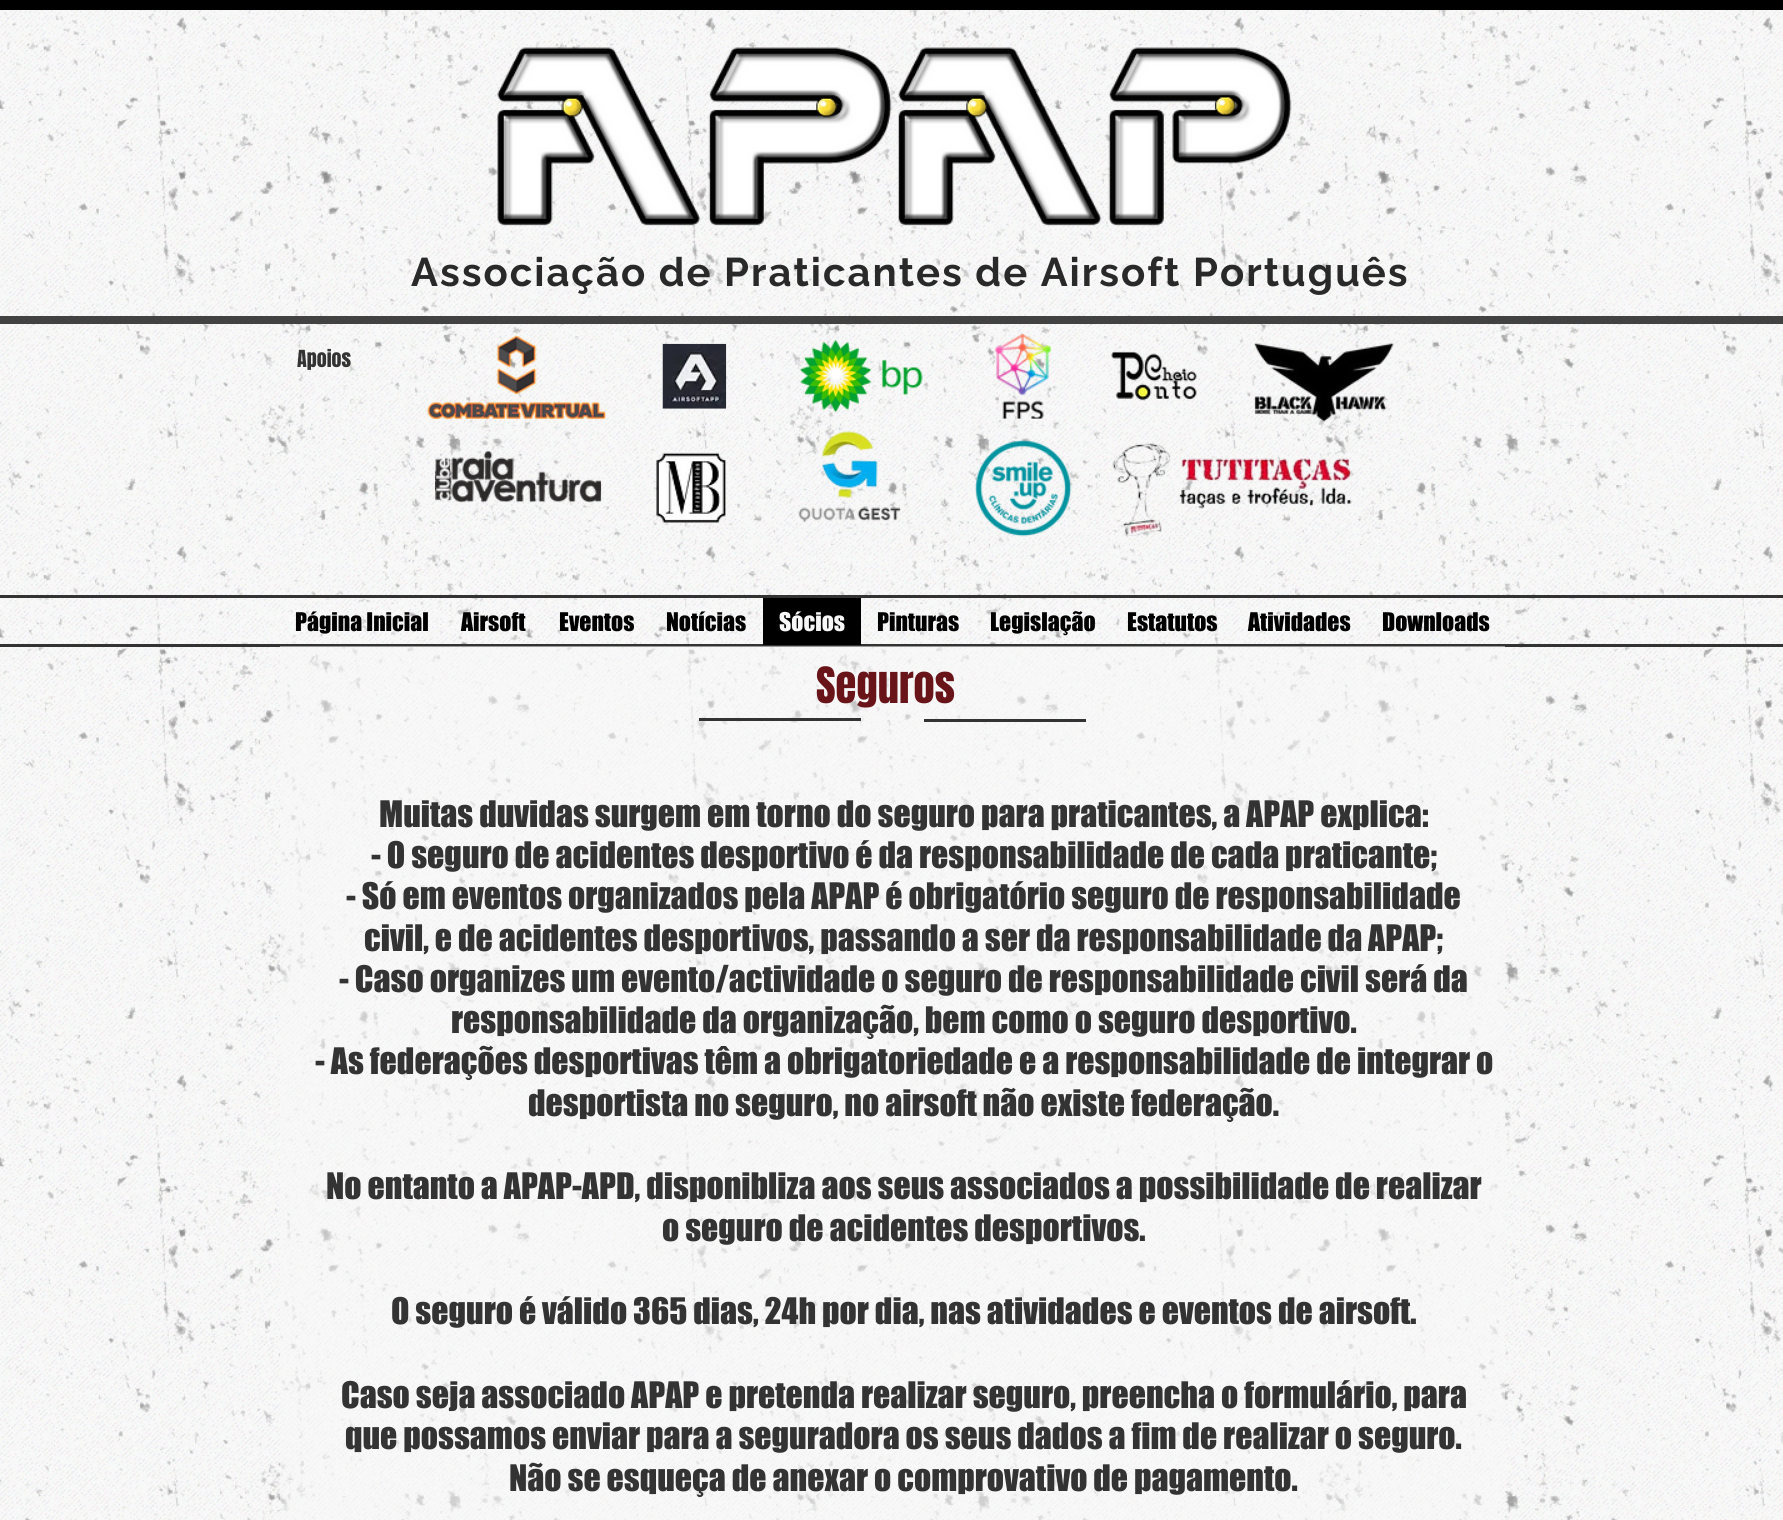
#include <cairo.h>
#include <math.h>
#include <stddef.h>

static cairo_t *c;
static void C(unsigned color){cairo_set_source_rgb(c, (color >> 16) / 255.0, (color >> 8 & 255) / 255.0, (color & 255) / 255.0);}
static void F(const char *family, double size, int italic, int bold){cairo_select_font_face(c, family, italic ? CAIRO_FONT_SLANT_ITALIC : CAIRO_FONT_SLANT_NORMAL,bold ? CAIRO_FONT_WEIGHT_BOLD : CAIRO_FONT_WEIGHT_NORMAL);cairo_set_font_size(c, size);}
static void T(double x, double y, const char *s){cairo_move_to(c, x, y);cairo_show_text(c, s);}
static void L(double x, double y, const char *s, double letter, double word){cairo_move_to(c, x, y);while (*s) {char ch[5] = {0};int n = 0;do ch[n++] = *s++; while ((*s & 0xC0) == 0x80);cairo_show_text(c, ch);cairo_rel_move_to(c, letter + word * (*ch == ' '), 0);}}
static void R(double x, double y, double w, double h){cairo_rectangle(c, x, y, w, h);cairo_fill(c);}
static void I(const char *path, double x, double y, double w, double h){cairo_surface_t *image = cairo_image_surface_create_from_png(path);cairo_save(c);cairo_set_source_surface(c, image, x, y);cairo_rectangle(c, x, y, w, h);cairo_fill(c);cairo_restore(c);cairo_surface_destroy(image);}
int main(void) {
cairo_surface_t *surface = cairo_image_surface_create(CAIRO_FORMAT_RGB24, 1783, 1520);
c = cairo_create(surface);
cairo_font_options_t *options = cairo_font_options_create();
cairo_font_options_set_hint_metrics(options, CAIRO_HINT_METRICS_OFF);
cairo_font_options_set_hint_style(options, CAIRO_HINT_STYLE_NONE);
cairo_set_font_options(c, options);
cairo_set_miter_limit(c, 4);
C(0xf8f8f8);
cairo_paint(c);
I("1.png",0,10,1783,1510);
C(0x000000);
R(0,0,1783,10);
I("2.png",497,47,795,179);
F("Raleway",40,0,1);
C(0x292929);
L(411,286,"Associação de Praticantes de Airsoft Português",2,0);
C(0x424242);
R(0,316,1783,8);
F("Anton",20,0,0);
C(0x333333);
T(297,367,"Apoios");
I("3.png",427,335,180,85);
I("4.png",662,343,65,66);
I("5.png",799,339,124,74);
I("6.png",994,333,58,86);
I("7.png",1111,351,86,50);
I("8.png",1254,343,140,79);
I("9.png",435,451,167,52);
I("10.png",656,452,70,71);
I("11.png",798,431,103,92);
I("12.png",975,440,97,97);
I("13.png",1112,443,240,93);
R(0,595,1783,3);
R(0,644,1783,3);
F("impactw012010",23.75,0,0);
C(0x000000);
T(295,631,"Página Inicial");
T(461,631,"Airsoft");
T(559,631,"Eventos");
T(666,631,"Notícias");
R(763,598,98,47);
C(0xf8f8f8);
T(779,631,"Sócios");
C(0x000000);
T(877,631,"Pinturas");
T(990,631,"Legislação");
T(1127,631,"Estatutos");
T(1248,631,"Atividades");
T(1382,631,"Downloads");
cairo_set_source_rgba(c,0.973,0.973,0.973,0.52);
R(280,646,1225,874);
F("Anton",42.5,0,0);
C(0x691419);
T(816,703,"Seguros");
C(0x333333);
R(699,718,162,3);
R(924,719,162,3);
F("impactw012010",33.75,0,0);
T(379,827,"Muitas duvidas surgem em torno do seguro para praticantes, a APAP explica:");
T(371,868,"- O seguro de acidentes desportivo é da responsabilidade de cada praticante;");
T(346,909,"- Só em eventos organizados pela APAP é obrigatório seguro de responsabilidade");
T(364,951,"civil, e de acidentes desportivos, passando a ser da responsabilidade da APAP;");
T(339,992,"- Caso organizes um evento/actividade o seguro de responsabilidade civil será da");
T(451,1033,"responsabilidade da organização, bem como o seguro desportivo.");
T(315,1074,"- As federações desportivas têm a obrigatoriedade e a responsabilidade de integrar o");
T(528,1116,"desportista no seguro, no airsoft não existe federação.");
T(326,1199,"No entanto a APAP-APD, disponibliza aos seus associados a possibilidade de realizar");
T(662,1241,"o seguro de acidentes desportivos.");
T(391,1324,"O seguro é válido 365 dias, 24h por dia, nas atividades e eventos de airsoft.");
T(341,1408,"Caso seja associado APAP e pretenda realizar seguro, preencha o formulário, para");
T(345,1449,"que possamos enviar para a seguradora os seus dados a fim de realizar o seguro.");
T(509,1491,"Não se esqueça de anexar o comprovativo de pagamento.");
cairo_surface_write_to_png(surface, "o.png");
cairo_font_options_destroy(options);
cairo_destroy(c);
cairo_surface_destroy(surface);
return 0;
}
